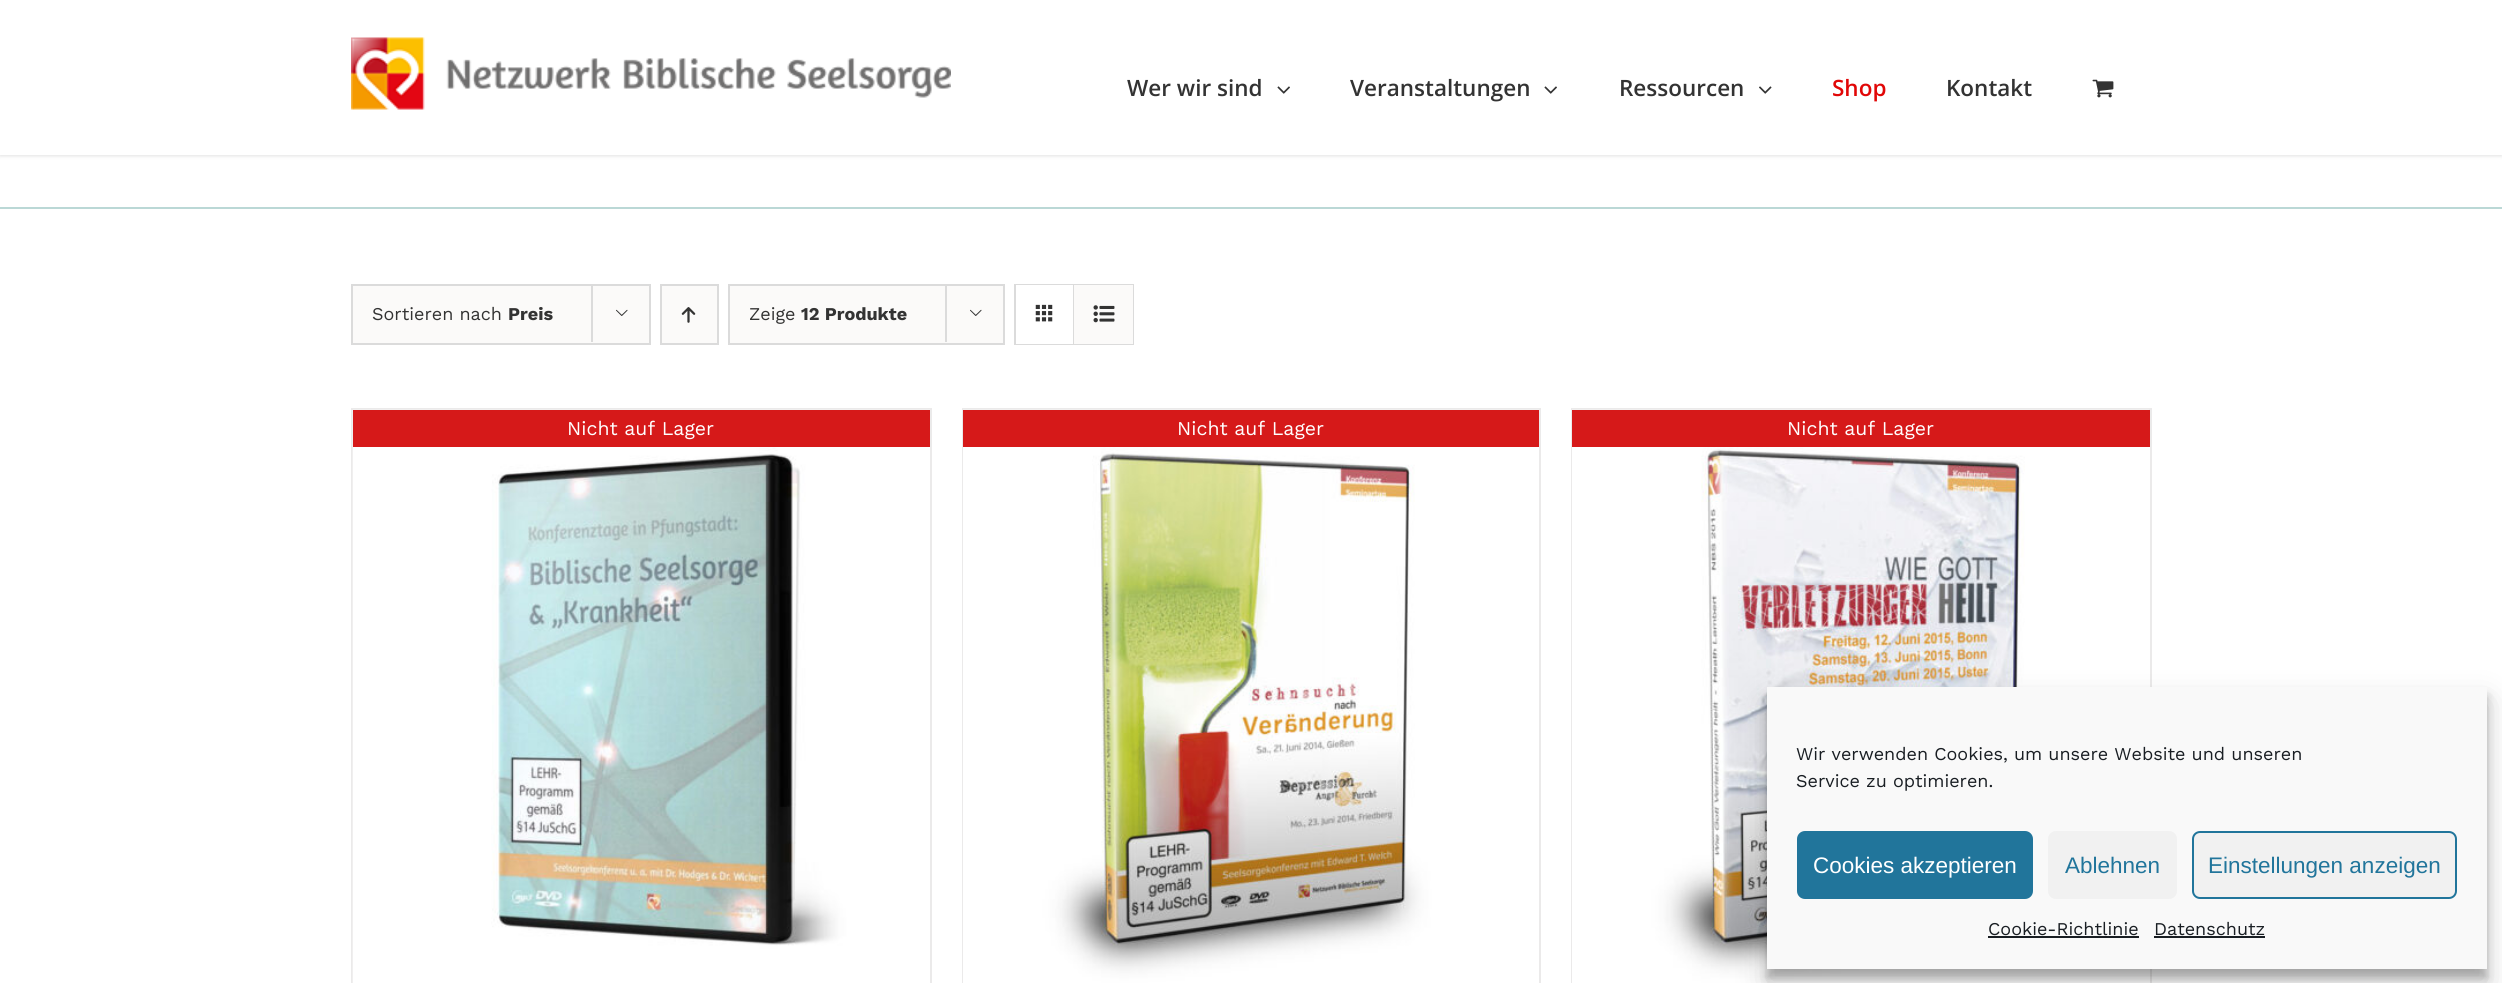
#include <cairo.h>
#include <math.h>
#include <stddef.h>

static cairo_t *c;
static void C(unsigned color){cairo_set_source_rgb(c, (color >> 16) / 255.0, (color >> 8 & 255) / 255.0, (color & 255) / 255.0);}
static void F(const char *family, double size, int italic, int bold){cairo_select_font_face(c, family, italic ? CAIRO_FONT_SLANT_ITALIC : CAIRO_FONT_SLANT_NORMAL,bold ? CAIRO_FONT_WEIGHT_BOLD : CAIRO_FONT_WEIGHT_NORMAL);cairo_set_font_size(c, size);}
static void T(double x, double y, const char *s){cairo_move_to(c, x, y);cairo_show_text(c, s);}
static void R(double x, double y, double w, double h){cairo_rectangle(c, x, y, w, h);cairo_fill(c);}
static void Q(double x, double y, double w, double h, double r){cairo_new_sub_path(c);cairo_arc(c, x + w - r, y + h - r, r, 0, M_PI / 2);cairo_arc(c, x + r, y + h - r, r, M_PI / 2, M_PI);cairo_arc(c, x + r, y + r, r, M_PI, 1.5 * M_PI);cairo_arc(c, x + w - r, y + r, r, 1.5 * M_PI, 2 * M_PI);cairo_close_path(c);}
static void S(double x, double y, double w, double h, double r, double blur, double alpha){cairo_push_group_with_content(c, CAIRO_CONTENT_ALPHA);cairo_set_operator(c, CAIRO_OPERATOR_SOURCE);for (int i = 15; i >= -15 && fmin(w, h) + blur * i / 3 > 0; i -= 2) {double e = blur * i / 6;cairo_set_source_rgba(c, 0, 0, 0, alpha * erfc((i - 1) / 8.5) / 2);Q(x - e, y - e, w + 2 * e, h + 2 * e, fmax(0, fmin(r + e + blur * .6, fmin(w, h) / 2 + e)));cairo_fill(c);}cairo_pattern_t *soft = cairo_pop_group(c);cairo_mask(c, soft);cairo_pattern_destroy(soft);}
static void I(const char *path, double x, double y, double w, double h){cairo_surface_t *image = cairo_image_surface_create_from_png(path);cairo_save(c);cairo_set_source_surface(c, image, x, y);cairo_rectangle(c, x, y, w, h);cairo_fill(c);cairo_restore(c);cairo_surface_destroy(image);}
int main(void) {
cairo_surface_t *surface = cairo_image_surface_create(CAIRO_FORMAT_RGB24, 2502, 983);
c = cairo_create(surface);
cairo_font_options_t *options = cairo_font_options_create();
cairo_font_options_set_hint_metrics(options, CAIRO_HINT_METRICS_OFF);
cairo_font_options_set_hint_style(options, CAIRO_HINT_STYLE_NONE);
cairo_set_font_options(c, options);
cairo_set_miter_limit(c, 4);
C(0xffffff);
cairo_paint(c);
C(0x000000);
S(0,2,2502,154,0,2,.12);
C(0xffffff);
R(0,0,2502,155);
I("1.png",351,37,600,73);
F("Open Sans SemiBold",22.5,0,0);
C(0x333333);
T(1127,96,"Wer wir sind");
I("2.png",1277,86,13,8);
T(1350,96,"Veranstaltungen");
I("2.png",1544,86,13,8);
T(1619,96,"Ressourcen");
I("3.png",1759,86,13,8);
C(0xe10707);
T(1832,96,"Shop");
C(0x333333);
T(1946,96,"Kontakt");
I("4.png",2092,79,22,19);
C(0xbbd8d6);
R(0,207,2502,2);
C(0xfbfaf9);
cairo_rectangle(c,352,285,298,59);
cairo_fill_preserve(c);
C(0xdbdbdb);
cairo_stroke(c);
F("Work Sans",18,0,0);
C(0x333333);
T(372,320,"Sortieren nach");
F("Work Sans",18,0,1);
T(508,320,"Preis");
C(0xdbdbdb);
R(591,284,2,58);
I("5.png",616,309,12,7);
C(0xfbfaf9);
cairo_rectangle(c,661,285,57,59);
cairo_fill_preserve(c);
C(0xdbdbdb);
cairo_stroke(c);
I("6.png",681,307,15,16);
C(0xfbfaf9);
cairo_rectangle(c,729,285,275,59);
cairo_fill_preserve(c);
C(0xdbdbdb);
cairo_stroke(c);
F("Work Sans",18,0,0);
C(0x333333);
T(749,320,"Zeige");
F("Work Sans",18,0,1);
T(801,320,"12 Produkte");
C(0xdbdbdb);
R(945,284,2,58);
I("5.png",970,309,12,7);
cairo_rectangle(c,1015,285,118,59);
cairo_stroke(c);
C(0xffffff);
R(1016,285,57,59);
C(0xdbdbdb);
R(1073,285,1,59);
I("7.png",1035,304,18,18);
C(0xfbfaf9);
R(1074,285,59,59);
I("8.png",1093,305,22,18);
C(0xebeaea);
R(351,408,581,2);
R(930,408,2,575);
R(351,408,2,575);
I("9.png",352,409,578,574);
C(0xd61919);
R(353,410,577,37);
F("Work Sans",19.5,0,0);
C(0xffffff);
T(567,435,"Nicht auf Lager");
C(0xebeaea);
R(962,408,579,2);
R(1539,408,2,575);
R(962,408,2,575);
I("10.png",963,409,576,574);
C(0xd61919);
R(963,410,576,37);
C(0xffffff);
T(1177,435,"Nicht auf Lager");
C(0xebeaea);
R(1571,408,580,2);
R(2150,408,2,575);
R(1571,408,2,575);
I("11.png",1572,409,577,574);
C(0xd61919);
R(1572,410,578,37);
C(0xffffff);
T(1787,435,"Nicht auf Lager");
C(0x000000);
S(1767,696,720,282,0,4.5,.23);
S(1767,702,720,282,0,15,.19);
C(0xf9f9f9);
R(1767,687,720,282);
F("Work Sans",18,0,0);
C(0x191e23);
T(1796,760,"Wir verwenden Cookies, um unsere Website und unseren");
T(1796,787,"Service zu optimieren.");
C(0x21759b);
Q(1798,832,234,66,7);
cairo_fill_preserve(c);
cairo_stroke(c);
F("Liberation Sans",22.5,0,0);
C(0xffffff);
T(1813,873,"Cookies akzeptieren");
C(0xf1f1f1);
Q(2048,831,129,68,8);
cairo_fill(c);
C(0x21759b);
T(2065,873,"Ablehnen");
C(0xf1f1f1);
Q(2193,832,263,66,7);
cairo_fill_preserve(c);
C(0x21759b);
cairo_stroke(c);
T(2208,873,"Einstellungen anzeigen");
F("Work Sans",18,0,0);
C(0x191e23);
T(1988,935,"Cookie-Richtlinie");
R(1988,936,151,2);
T(2154,935,"Datenschutz");
R(2154,936,111,2);
cairo_surface_write_to_png(surface, "o.png");
cairo_font_options_destroy(options);
cairo_destroy(c);
cairo_surface_destroy(surface);
return 0;
}
